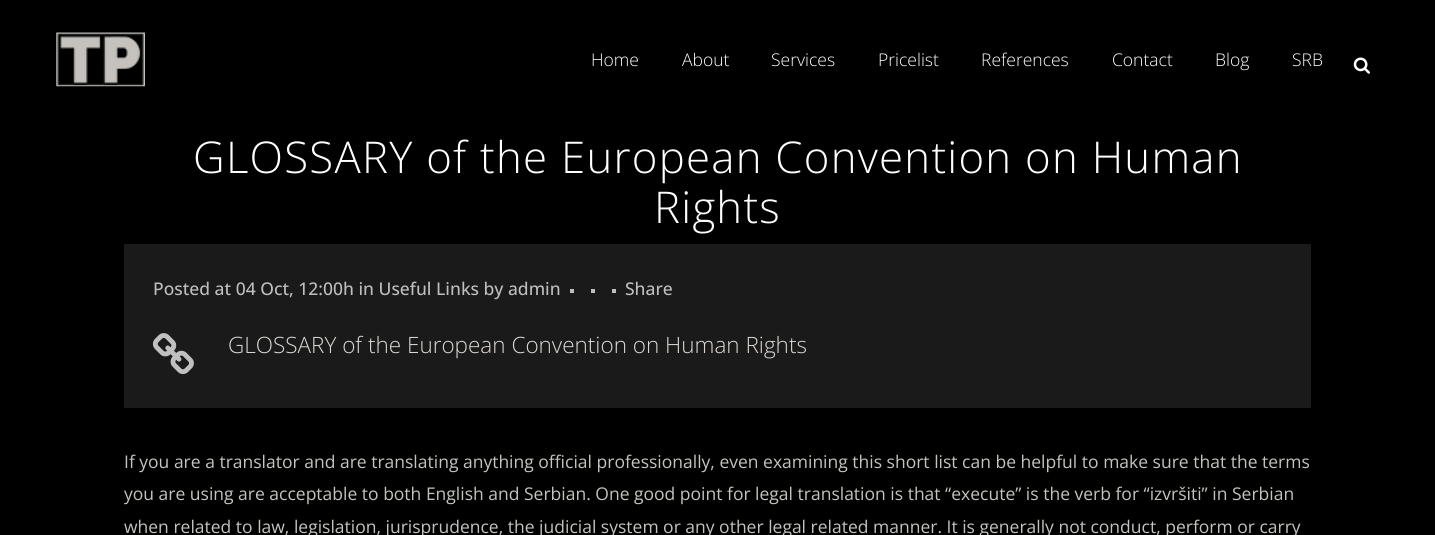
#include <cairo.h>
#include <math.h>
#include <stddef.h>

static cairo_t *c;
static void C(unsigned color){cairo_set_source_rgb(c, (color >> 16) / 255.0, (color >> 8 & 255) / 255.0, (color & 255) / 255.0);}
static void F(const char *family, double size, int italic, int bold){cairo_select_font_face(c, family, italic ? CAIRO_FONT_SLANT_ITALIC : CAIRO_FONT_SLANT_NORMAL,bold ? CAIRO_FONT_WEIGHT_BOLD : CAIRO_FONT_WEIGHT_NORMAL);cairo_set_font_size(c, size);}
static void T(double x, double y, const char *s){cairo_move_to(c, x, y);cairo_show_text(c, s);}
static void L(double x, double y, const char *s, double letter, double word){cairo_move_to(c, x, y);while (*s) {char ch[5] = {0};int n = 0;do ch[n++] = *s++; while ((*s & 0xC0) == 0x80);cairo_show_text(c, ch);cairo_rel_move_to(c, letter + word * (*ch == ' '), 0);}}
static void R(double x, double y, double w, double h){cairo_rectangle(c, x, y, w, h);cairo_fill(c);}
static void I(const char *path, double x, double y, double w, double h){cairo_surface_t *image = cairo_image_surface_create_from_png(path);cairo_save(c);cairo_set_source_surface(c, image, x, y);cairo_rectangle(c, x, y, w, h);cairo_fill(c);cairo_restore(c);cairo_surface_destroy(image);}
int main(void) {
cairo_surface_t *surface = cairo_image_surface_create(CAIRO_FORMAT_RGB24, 1435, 535);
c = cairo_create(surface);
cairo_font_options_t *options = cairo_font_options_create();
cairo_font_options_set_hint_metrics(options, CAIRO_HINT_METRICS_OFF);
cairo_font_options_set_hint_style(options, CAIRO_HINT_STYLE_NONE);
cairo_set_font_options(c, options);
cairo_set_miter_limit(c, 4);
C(0x000000);
cairo_paint(c);
I("1.png",56,32,89,55);
F("Open Sans Light",17.5,0,0);
C(0xffffff);
T(591,66,"Home");
T(682,66,"About");
T(771,66,"Services");
T(878,66,"Pricelist");
T(981,66,"References");
T(1112,66,"Contact");
T(1215,66,"Blog");
T(1292,66,"SRB");
I("2.png",1353,57,17,17);
F("Open Sans Light",43.75,0,0);
L(193,173,"GLOSSARY of the European Convention on Human",1.25,0);
L(654,223,"Rights",1.25,0);
C(0x1b1a1a);
R(124,244,1187,164);
F("Open Sans Medium",17.5,0,0);
C(0xbebebe);
T(153,295,"Posted at 04 Oct, 12:00h in Useful Links by admin");
R(570,289,4,4);
R(591,289,4,4);
R(612,289,4,4);
T(625,295,"Share");
I("3.png",152,333,42,41);
F("Open Sans Light",22.5,0,0);
C(0xdbd8d3);
T(228,353,"GLOSSARY of the European Convention on Human Rights");
F("Open Sans",17.5,0,0);
C(0xc5c3be);
T(124,468,"If you are a translator and are translating anything official professionally, even examining this short list can be helpful to make sure that the terms");
T(124,500,"you are using are acceptable to both English and Serbian. One good point for legal translation is that “execute” is the verb for “izvršiti” in Serbian");
T(124,533,"when related to law, legislation, jurisprudence, the judicial system or any other legal related manner. It is generally not conduct, perform or carry");
cairo_surface_write_to_png(surface, "o.png");
cairo_font_options_destroy(options);
cairo_destroy(c);
cairo_surface_destroy(surface);
return 0;
}
